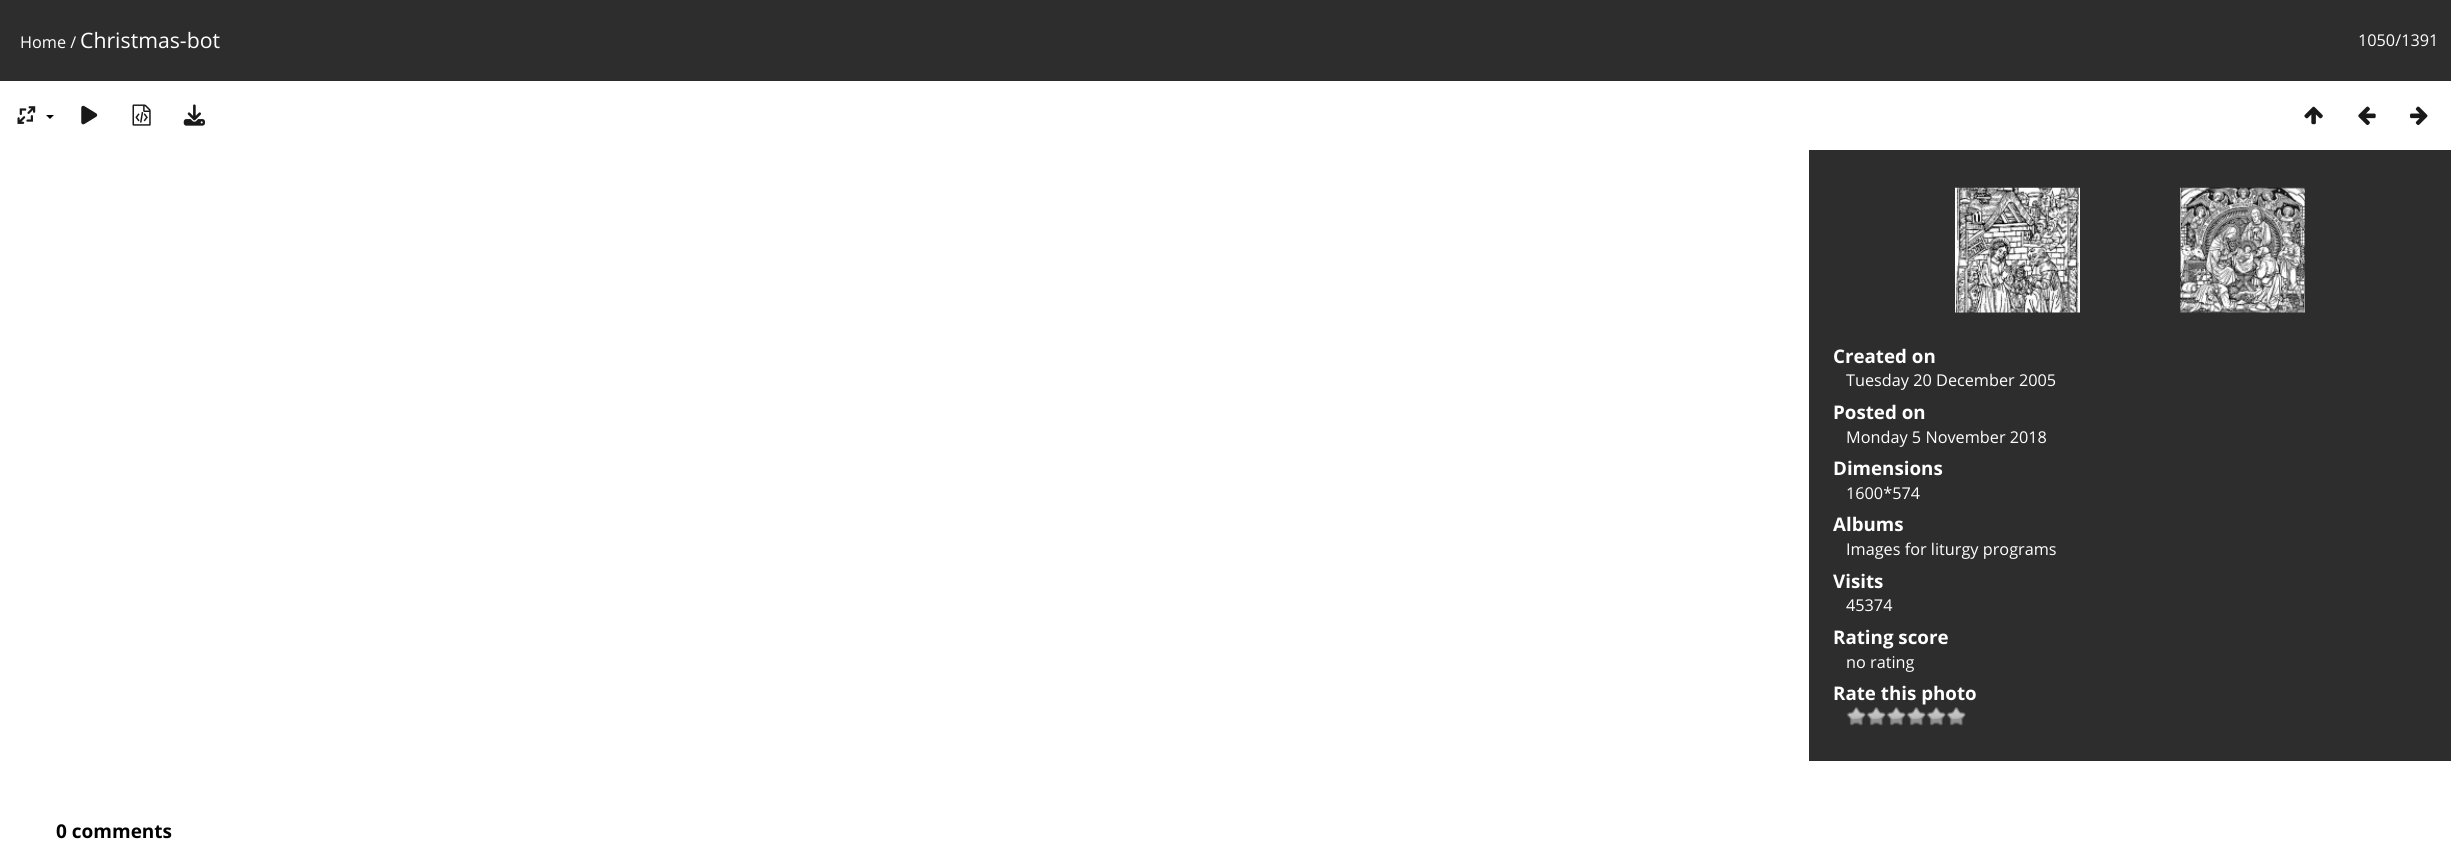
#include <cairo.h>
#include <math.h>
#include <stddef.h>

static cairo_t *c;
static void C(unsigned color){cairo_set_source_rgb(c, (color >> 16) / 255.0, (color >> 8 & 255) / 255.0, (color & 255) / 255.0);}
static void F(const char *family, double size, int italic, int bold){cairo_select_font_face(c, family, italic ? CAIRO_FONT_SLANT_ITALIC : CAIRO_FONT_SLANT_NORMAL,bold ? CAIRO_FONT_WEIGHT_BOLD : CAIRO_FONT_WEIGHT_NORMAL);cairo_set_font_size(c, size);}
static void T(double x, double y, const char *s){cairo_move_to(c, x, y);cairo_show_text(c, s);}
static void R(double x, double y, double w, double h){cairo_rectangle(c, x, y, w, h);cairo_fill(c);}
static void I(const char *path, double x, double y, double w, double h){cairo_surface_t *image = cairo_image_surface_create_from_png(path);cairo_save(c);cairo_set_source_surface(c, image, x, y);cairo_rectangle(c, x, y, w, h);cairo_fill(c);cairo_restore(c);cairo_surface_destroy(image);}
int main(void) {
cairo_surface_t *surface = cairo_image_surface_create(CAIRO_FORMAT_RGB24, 2451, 852);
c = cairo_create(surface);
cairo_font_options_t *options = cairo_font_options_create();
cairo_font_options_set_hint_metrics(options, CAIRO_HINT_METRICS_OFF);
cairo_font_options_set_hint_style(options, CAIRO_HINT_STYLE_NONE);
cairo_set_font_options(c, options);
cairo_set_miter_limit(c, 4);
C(0xffffff);
cairo_paint(c);
C(0x2d2d2d);
R(0,0,2451,81);
F("Open Sans",16.25,0,0);
C(0xffffff);
T(20,48,"Home /");
F("Open Sans",21.25,0,0);
T(80,48,"Christmas-bot");
F("Open Sans",16.25,0,0);
T(2358,46,"1050/1391");
I("1.png",17,106,19,18);
C(0x000000);
cairo_new_path(c);
cairo_move_to(c,46,115);
cairo_line_to(c,54,115);
cairo_line_to(c,50,119);
cairo_close_path(c);
cairo_fill(c);
I("2.png",81,105,17,20);
I("3.png",132,104,19,22);
I("4.png",183,104,22,22);
I("5.png",2304,106,19,19);
I("6.png",2358,106,18,19);
I("7.png",2410,106,18,19);
C(0x2d2d2d);
R(1809,150,642,611);
I("8.png",1955,187,125,126);
I("9.png",2180,187,125,126);
F("Open Sans",18.75,0,1);
C(0xffffff);
T(1833,363,"Created on");
F("Open Sans",16.25,0,0);
T(1846,386,"Tuesday 20 December 2005");
F("Open Sans",18.75,0,1);
T(1833,419,"Posted on");
F("Open Sans",16.25,0,0);
T(1846,443,"Monday 5 November 2018");
F("Open Sans",18.75,0,1);
T(1833,475,"Dimensions");
F("Open Sans",16.25,0,0);
T(1846,499,"1600*574");
F("Open Sans",18.75,0,1);
T(1833,531,"Albums");
F("Open Sans",16.25,0,0);
T(1846,555,"Images for liturgy programs");
F("Open Sans",18.75,0,1);
T(1833,588,"Visits");
F("Open Sans",16.25,0,0);
T(1846,611,"45374");
F("Open Sans",18.75,0,1);
T(1833,644,"Rating score");
F("Open Sans",16.25,0,0);
T(1846,668,"no rating");
F("Open Sans",18.75,0,1);
T(1833,700,"Rate this photo");
I("10.png",1846,707,20,19);
I("10.png",1866,707,20,19);
I("10.png",1886,707,20,19);
I("10.png",1906,707,20,19);
I("10.png",1926,707,20,19);
I("10.png",1946,707,20,19);
F("Open Sans",19,0,1);
C(0x000000);
T(56,838,"0 comments");
cairo_surface_write_to_png(surface, "o.png");
cairo_font_options_destroy(options);
cairo_destroy(c);
cairo_surface_destroy(surface);
return 0;
}
